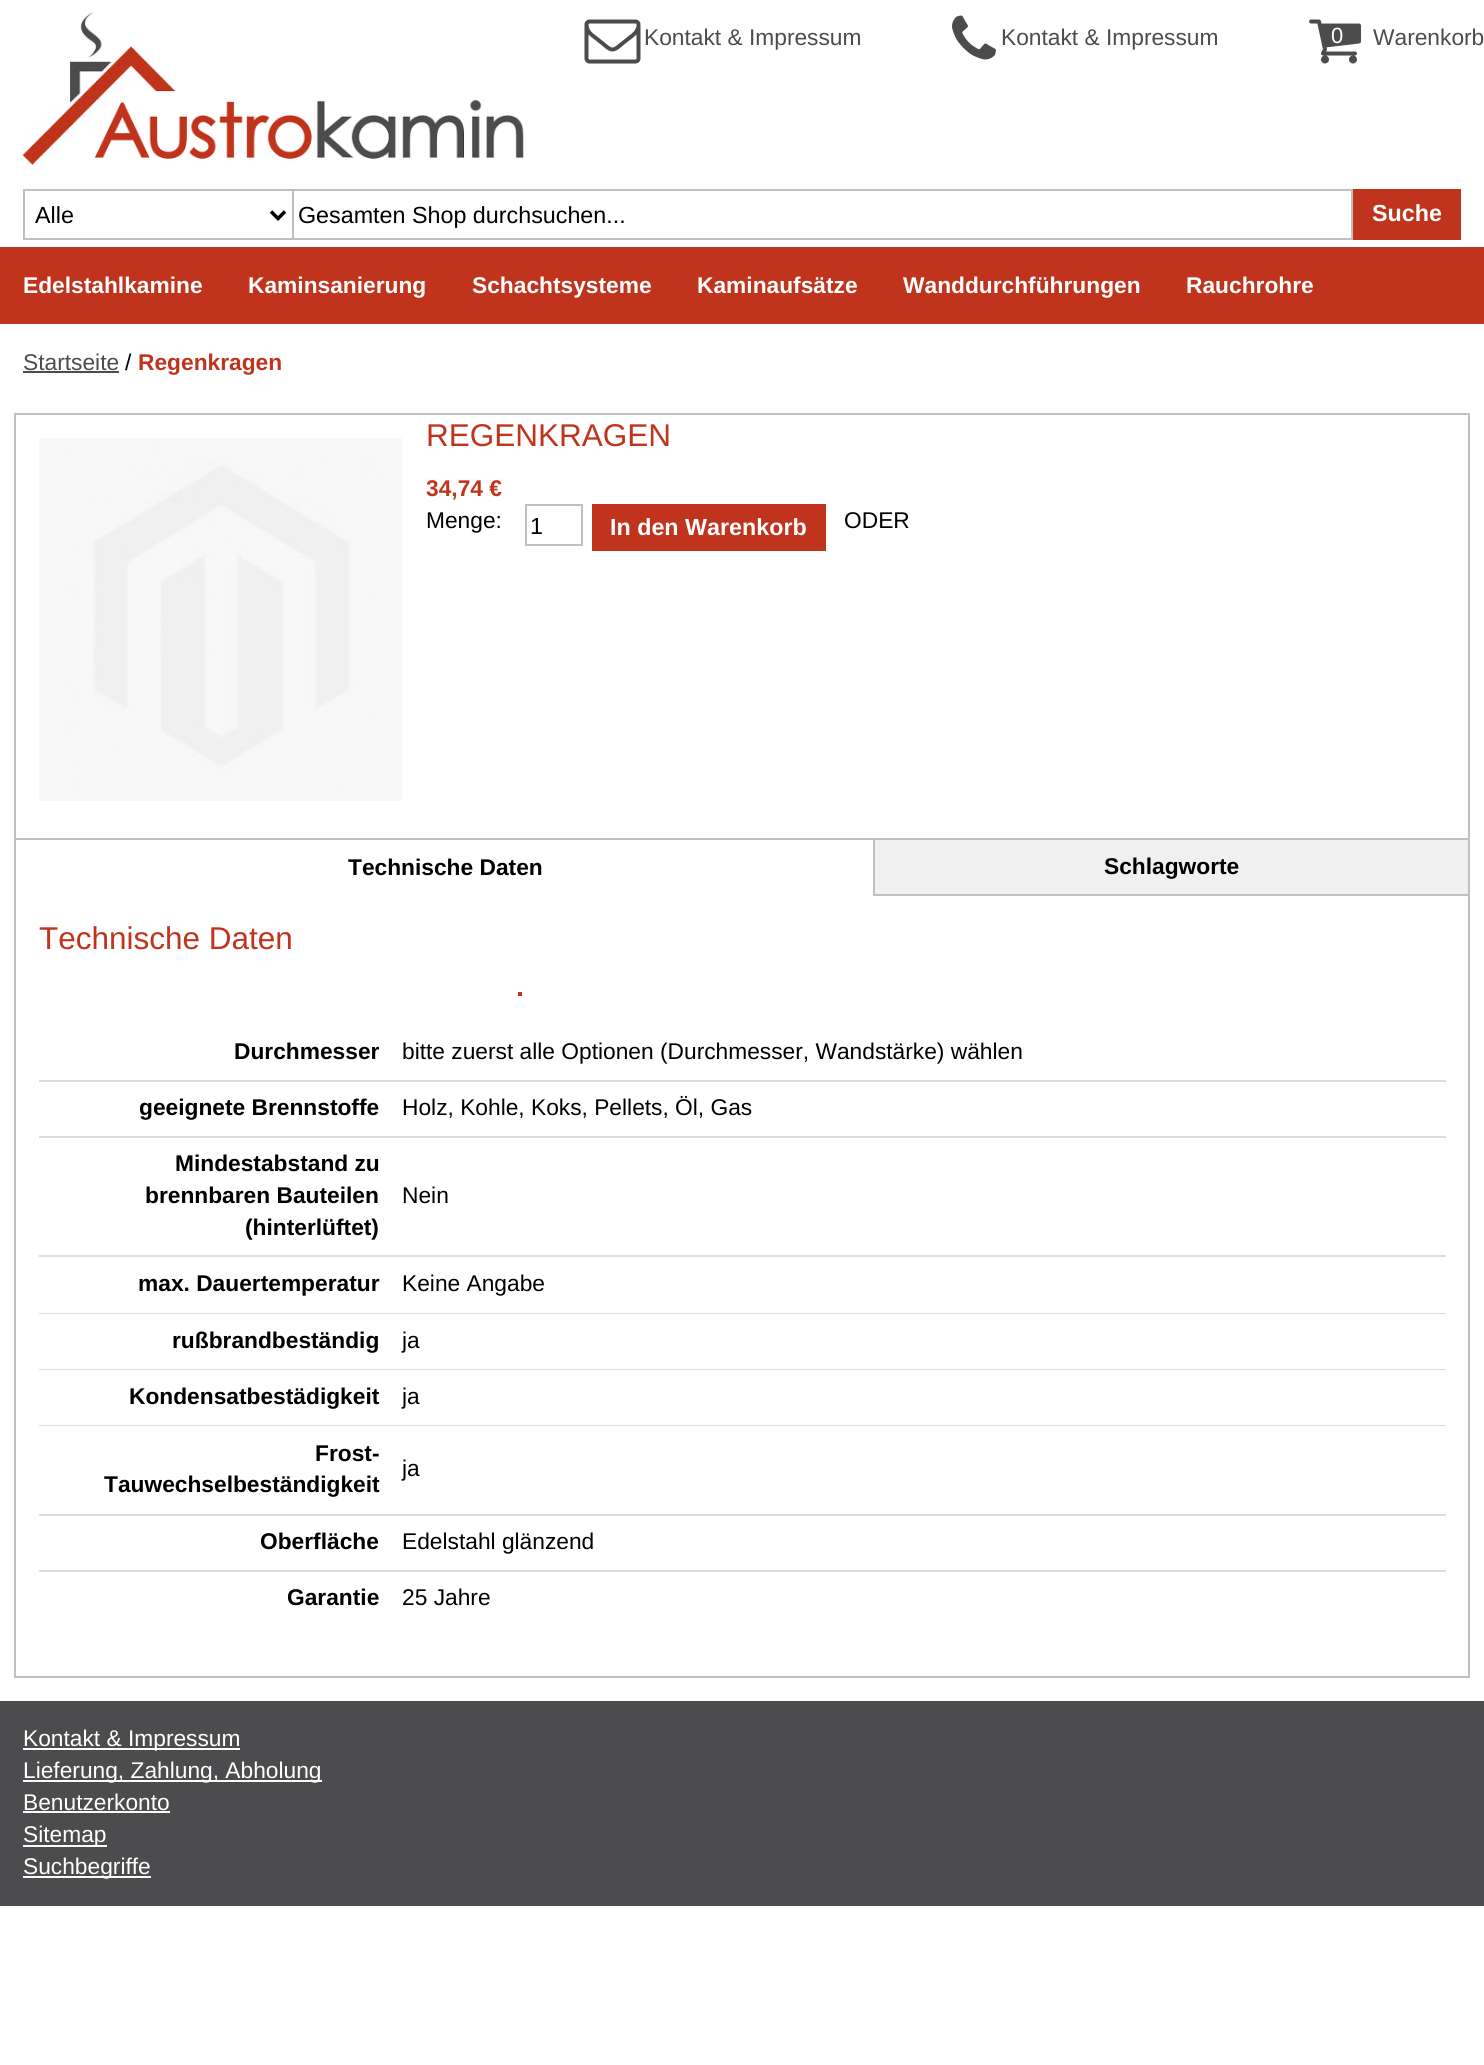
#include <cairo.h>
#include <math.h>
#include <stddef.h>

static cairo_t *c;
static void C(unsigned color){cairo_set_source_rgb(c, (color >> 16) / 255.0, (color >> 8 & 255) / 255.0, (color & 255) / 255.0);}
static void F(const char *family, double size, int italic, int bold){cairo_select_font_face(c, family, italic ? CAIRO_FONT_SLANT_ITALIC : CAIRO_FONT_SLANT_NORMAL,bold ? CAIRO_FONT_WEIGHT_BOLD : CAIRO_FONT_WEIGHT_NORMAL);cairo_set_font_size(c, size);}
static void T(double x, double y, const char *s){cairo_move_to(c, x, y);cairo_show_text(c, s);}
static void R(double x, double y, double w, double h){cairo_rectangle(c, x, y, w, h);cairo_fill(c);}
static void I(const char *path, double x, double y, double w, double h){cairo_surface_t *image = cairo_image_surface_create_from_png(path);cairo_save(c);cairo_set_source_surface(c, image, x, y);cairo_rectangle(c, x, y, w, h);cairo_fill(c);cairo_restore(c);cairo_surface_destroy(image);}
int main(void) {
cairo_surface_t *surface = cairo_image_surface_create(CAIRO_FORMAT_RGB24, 1484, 2065);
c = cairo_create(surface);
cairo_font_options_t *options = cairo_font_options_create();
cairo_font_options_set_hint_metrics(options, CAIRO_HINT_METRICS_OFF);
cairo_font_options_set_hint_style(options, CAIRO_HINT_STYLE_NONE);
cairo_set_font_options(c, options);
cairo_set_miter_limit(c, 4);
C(0xffffff);
cairo_paint(c);
I("1.png",22,12,502,154);
I("2.png",584,19,57,45);
F("Liberation Sans",22.75,0,0);
C(0x4c4c4e);
T(644,45,"Kontakt & Impressum");
I("3.png",952,15,44,45);
T(1001,45,"Kontakt & Impressum");
I("4.png",1309,19,52,45);
F("Liberation Sans",22,0,0);
C(0xffffff);
T(1331,43,"0");
F("Liberation Sans",22.75,0,0);
C(0x4c4c4e);
T(1373,45,"Warenkorb");
C(0xc0c0c0);
R(23,189,269,2);
R(23,238,269,2);
R(23,189,2,51);
cairo_new_path(c);
cairo_move_to(c,271,211.5);
cairo_line_to(c,278,218.5);
cairo_line_to(c,285,211.5);
C(0x000000);
cairo_set_line_width(c,3.5);
cairo_stroke(c);
F("Liberation Sans",23.3,0,0);
T(35,223,"Alle");
cairo_rectangle(c,293,190,1059,49);
C(0xc0c0c0);
cairo_set_line_width(c,2);
cairo_stroke(c);
C(0x000000);
T(298,223,"Gesamten Shop durchsuchen...");
C(0xc0341d);
R(1353,189,108,51);
F("Liberation Sans",23.3,0,1);
C(0xffffff);
T(1372,221,"Suche");
C(0xc0341d);
R(0,247,1484,77);
F("Liberation Sans",22.75,0,1);
C(0xffffff);
T(23,293,"Edelstahlkamine");
T(248,293,"Kaminsanierung");
T(472,293,"Schachtsysteme");
T(697,293,"Kaminaufsätze");
T(903,293,"Wanddurchführungen");
T(1186,293,"Rauchrohre");
F("Liberation Sans",22.75,0,0);
C(0x4c4c4e);
T(23,370,"Startseite");
R(23,371,96,2);
C(0x000000);
T(125,370,"/");
F("Liberation Sans",22.75,0,1);
C(0xc0341d);
T(138,370,"Regenkragen");
cairo_rectangle(c,15,414,1454,1263);
C(0xc0c0c0);
cairo_stroke(c);
F("Liberation Sans",31.5,0,0);
C(0xc0341d);
T(426,446,"REGENKRAGEN");
I("5.png",39,438,363,363);
F("Liberation Sans",22.75,0,1);
T(426,496,"34,74 €");
F("Liberation Sans",22.75,0,0);
C(0x000000);
T(426,528,"Menge:");
cairo_rectangle(c,526,505,56,40);
C(0xc0c0c0);
cairo_stroke(c);
F("Liberation Sans",23.3,0,0);
C(0x000000);
T(530,534,"1");
C(0xc0341d);
R(592,504,234,47);
F("Liberation Sans",23.3,0,1);
C(0xffffff);
T(610,535,"In den Warenkorb");
F("Liberation Sans",22.75,0,0);
C(0x000000);
T(844,528,"ODER");
C(0xc0c0c0);
R(16,838,1452,2);
R(873,838,2,58);
F("Liberation Sans",22.75,0,1);
C(0x000000);
T(348,875,"Technische Daten");
C(0xf0f0f0);
R(875,840,593,54);
C(0xc0c0c0);
R(875,894,593,2);
C(0x000000);
T(1104,874,"Schlagworte");
F("Liberation Sans",31.5,0,0);
C(0xc0341d);
T(39,949,"Technische Daten");
R(518,992,4,4);
C(0xdddddd);
R(39,1080,1407,2);
F("Liberation Sans",22.75,0,1);
C(0x000000);
T(234,1059,"Durchmesser");
F("Liberation Sans",22.75,0,0);
T(402,1059,"bitte zuerst alle Optionen (Durchmesser, Wandstärke) wählen");
C(0xdddddd);
R(39,1136,1407,2);
F("Liberation Sans",22.75,0,1);
C(0x000000);
T(139,1115,"geeignete Brennstoffe");
F("Liberation Sans",22.75,0,0);
T(402,1115,"Holz, Kohle, Koks, Pellets, Öl, Gas");
C(0xdddddd);
R(39,1255,1407,2);
F("Liberation Sans",22.75,0,1);
C(0x000000);
T(175,1171,"Mindestabstand zu");
T(145,1203,"brennbaren Bauteilen");
T(245,1235,"(hinterlüftet)");
F("Liberation Sans",22.75,0,0);
T(402,1203,"Nein");
C(0xdddddd);
R(39,1313,1407,1);
F("Liberation Sans",22.75,0,1);
C(0x000000);
T(138,1291,"max. Dauertemperatur");
F("Liberation Sans",22.75,0,0);
T(402,1291,"Keine Angabe");
C(0xdddddd);
R(39,1369,1407,1);
F("Liberation Sans",22.75,0,1);
C(0x000000);
T(172,1348,"rußbrandbeständig");
F("Liberation Sans",22.75,0,0);
T(402,1348,"ja");
C(0xdddddd);
R(39,1425,1407,1);
F("Liberation Sans",22.75,0,1);
C(0x000000);
T(129,1404,"Kondensatbestädigkeit");
F("Liberation Sans",22.75,0,0);
T(402,1404,"ja");
C(0xdddddd);
R(39,1514,1407,2);
F("Liberation Sans",22.75,0,1);
C(0x000000);
T(315,1461,"Frost-");
T(104,1492,"Tauwechselbeständigkeit");
F("Liberation Sans",22.75,0,0);
T(402,1476,"ja");
C(0xdddddd);
R(39,1570,1407,2);
F("Liberation Sans",22.75,0,1);
C(0x000000);
T(260,1549,"Oberfläche");
F("Liberation Sans",22.75,0,0);
T(402,1549,"Edelstahl glänzend");
F("Liberation Sans",22.75,0,1);
T(287,1605,"Garantie");
F("Liberation Sans",22.75,0,0);
T(402,1605,"25 Jahre");
C(0x4c4c4e);
R(0,1701,1484,205);
C(0xffffff);
R(23,1748,217,2);
T(23,1746,"Kontakt & Impressum");
R(23,1780,299,2);
T(23,1778,"Lieferung, Zahlung, Abholung");
T(23,1810,"Benutzerkonto");
R(23,1811,147,2);
R(23,1845,84,2);
T(23,1842,"Sitemap");
R(23,1876,128,2);
T(23,1874,"Suchbegriffe");
cairo_surface_write_to_png(surface, "o.png");
cairo_font_options_destroy(options);
cairo_destroy(c);
cairo_surface_destroy(surface);
return 0;
}
